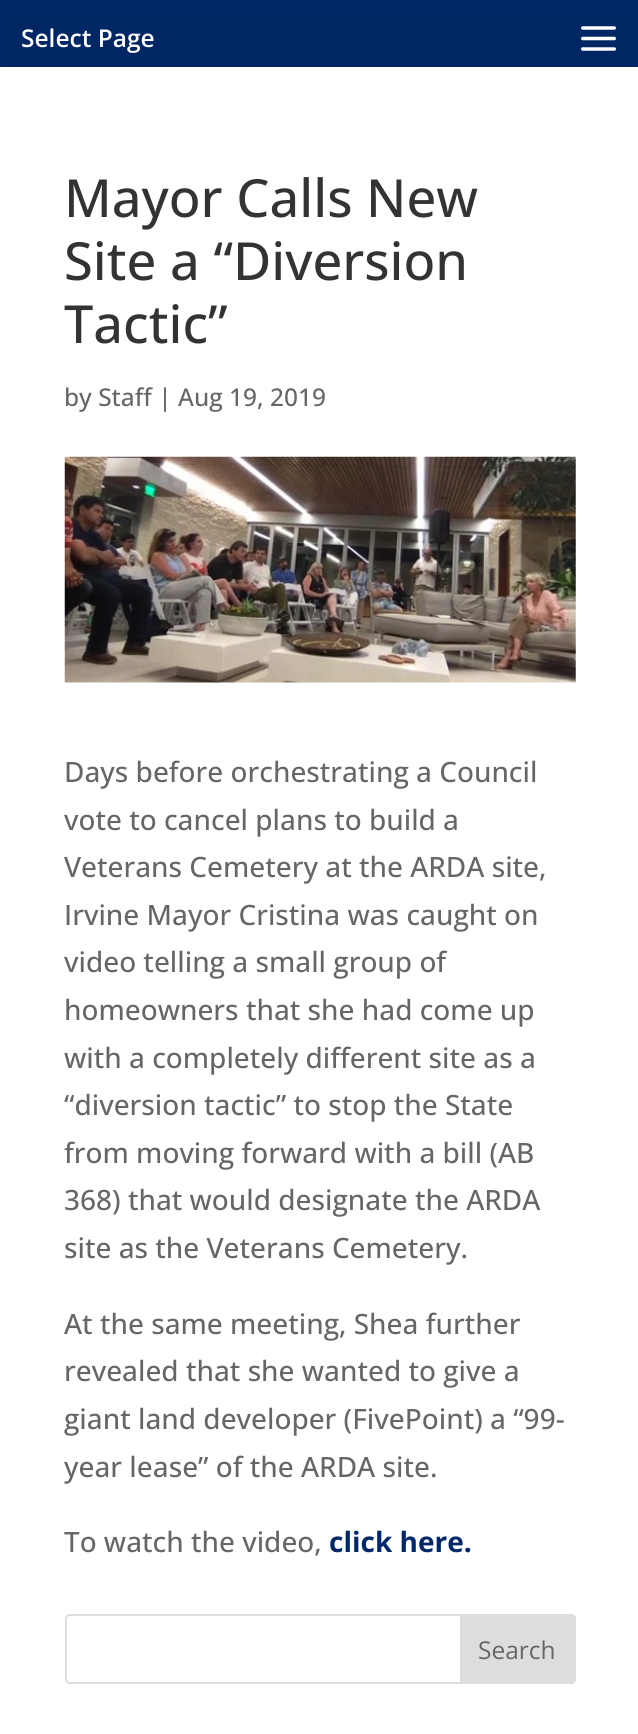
#include <cairo.h>
#include <math.h>
#include <stddef.h>

static cairo_t *c;
static void C(unsigned color){cairo_set_source_rgb(c, (color >> 16) / 255.0, (color >> 8 & 255) / 255.0, (color & 255) / 255.0);}
static void F(const char *family, double size, int italic, int bold){cairo_select_font_face(c, family, italic ? CAIRO_FONT_SLANT_ITALIC : CAIRO_FONT_SLANT_NORMAL,bold ? CAIRO_FONT_WEIGHT_BOLD : CAIRO_FONT_WEIGHT_NORMAL);cairo_set_font_size(c, size);}
static void T(double x, double y, const char *s){cairo_move_to(c, x, y);cairo_show_text(c, s);}
static void R(double x, double y, double w, double h){cairo_rectangle(c, x, y, w, h);cairo_fill(c);}
static void Q(double x, double y, double w, double h, double r){cairo_new_sub_path(c);cairo_arc(c, x + w - r, y + h - r, r, 0, M_PI / 2);cairo_arc(c, x + r, y + h - r, r, M_PI / 2, M_PI);cairo_arc(c, x + r, y + r, r, M_PI, 1.5 * M_PI);cairo_arc(c, x + w - r, y + r, r, 1.5 * M_PI, 2 * M_PI);cairo_close_path(c);}
static void I(const char *path, double x, double y, double w, double h){cairo_surface_t *image = cairo_image_surface_create_from_png(path);cairo_save(c);cairo_set_source_surface(c, image, x, y);cairo_rectangle(c, x, y, w, h);cairo_fill(c);cairo_restore(c);cairo_surface_destroy(image);}
int main(void) {
cairo_surface_t *surface = cairo_image_surface_create(CAIRO_FORMAT_RGB24, 638, 1734);
c = cairo_create(surface);
cairo_font_options_t *options = cairo_font_options_create();
cairo_font_options_set_hint_metrics(options, CAIRO_HINT_METRICS_OFF);
cairo_font_options_set_hint_style(options, CAIRO_HINT_STYLE_NONE);
cairo_set_font_options(c, options);
cairo_set_miter_limit(c, 4);
C(0xffffff);
cairo_paint(c);
C(0x002868);
R(0,0,638,67);
C(0x002663);
Q(4,9,631,58,9);
cairo_fill(c);
F("Open Sans SemiBold",24.5,0,0);
C(0xffffff);
T(21,47,"Select Page");
I("1.png",581,26,35,25);
F("Open Sans Medium",52.5,0,0);
C(0x333333);
T(64,217,"Mayor Calls New");
T(64,280,"Site a “Diversion");
T(64,343,"Tactic”");
F("Open Sans Medium",24.5,0,0);
C(0x666666);
T(64,406,"by Staff | Aug 19, 2019");
I("2.png",64,456,512,227);
F("Open Sans Medium",28,0,0);
T(64,782,"Days before orchestrating a Council");
T(64,830,"vote to cancel plans to build a");
T(64,877,"Veterans Cemetery at the ARDA site,");
T(64,925,"Irvine Mayor Cristina was caught on");
T(64,972,"video telling a small group of");
T(64,1020,"homeowners that she had come up");
T(64,1068,"with a completely different site as a");
T(64,1115,"“diversion tactic” to stop the State");
T(64,1163,"from moving forward with a bill (AB");
T(64,1210,"368) that would designate the ARDA");
T(64,1258,"site as the Veterans Cemetery.");
T(64,1334,"At the same meeting, Shea further");
T(64,1381,"revealed that she wanted to give a");
T(64,1429,"giant land developer (FivePoint) a “99-");
T(64,1477,"year lease” of the ARDA site.");
T(64,1552,"To watch the video,");
F("Open Sans",28,0,1);
C(0x002868);
T(329,1552,"click here.");
Q(66,1615,509,68,4);
C(0xdddddd);
cairo_stroke(c);
cairo_new_path(c);
cairo_move_to(c,461,1615);
cairo_line_to(c,571,1615);
cairo_curve_to(c,573,1615,575,1617,575,1619);
cairo_line_to(c,575,1679);
cairo_curve_to(c,575,1681,573,1683,571,1683);
cairo_line_to(c,461,1683);
cairo_close_path(c);
cairo_fill_preserve(c);
cairo_stroke(c);
F("Open Sans",24.5,0,0);
C(0x666666);
T(478,1659,"Search");
cairo_surface_write_to_png(surface, "o.png");
cairo_font_options_destroy(options);
cairo_destroy(c);
cairo_surface_destroy(surface);
return 0;
}
